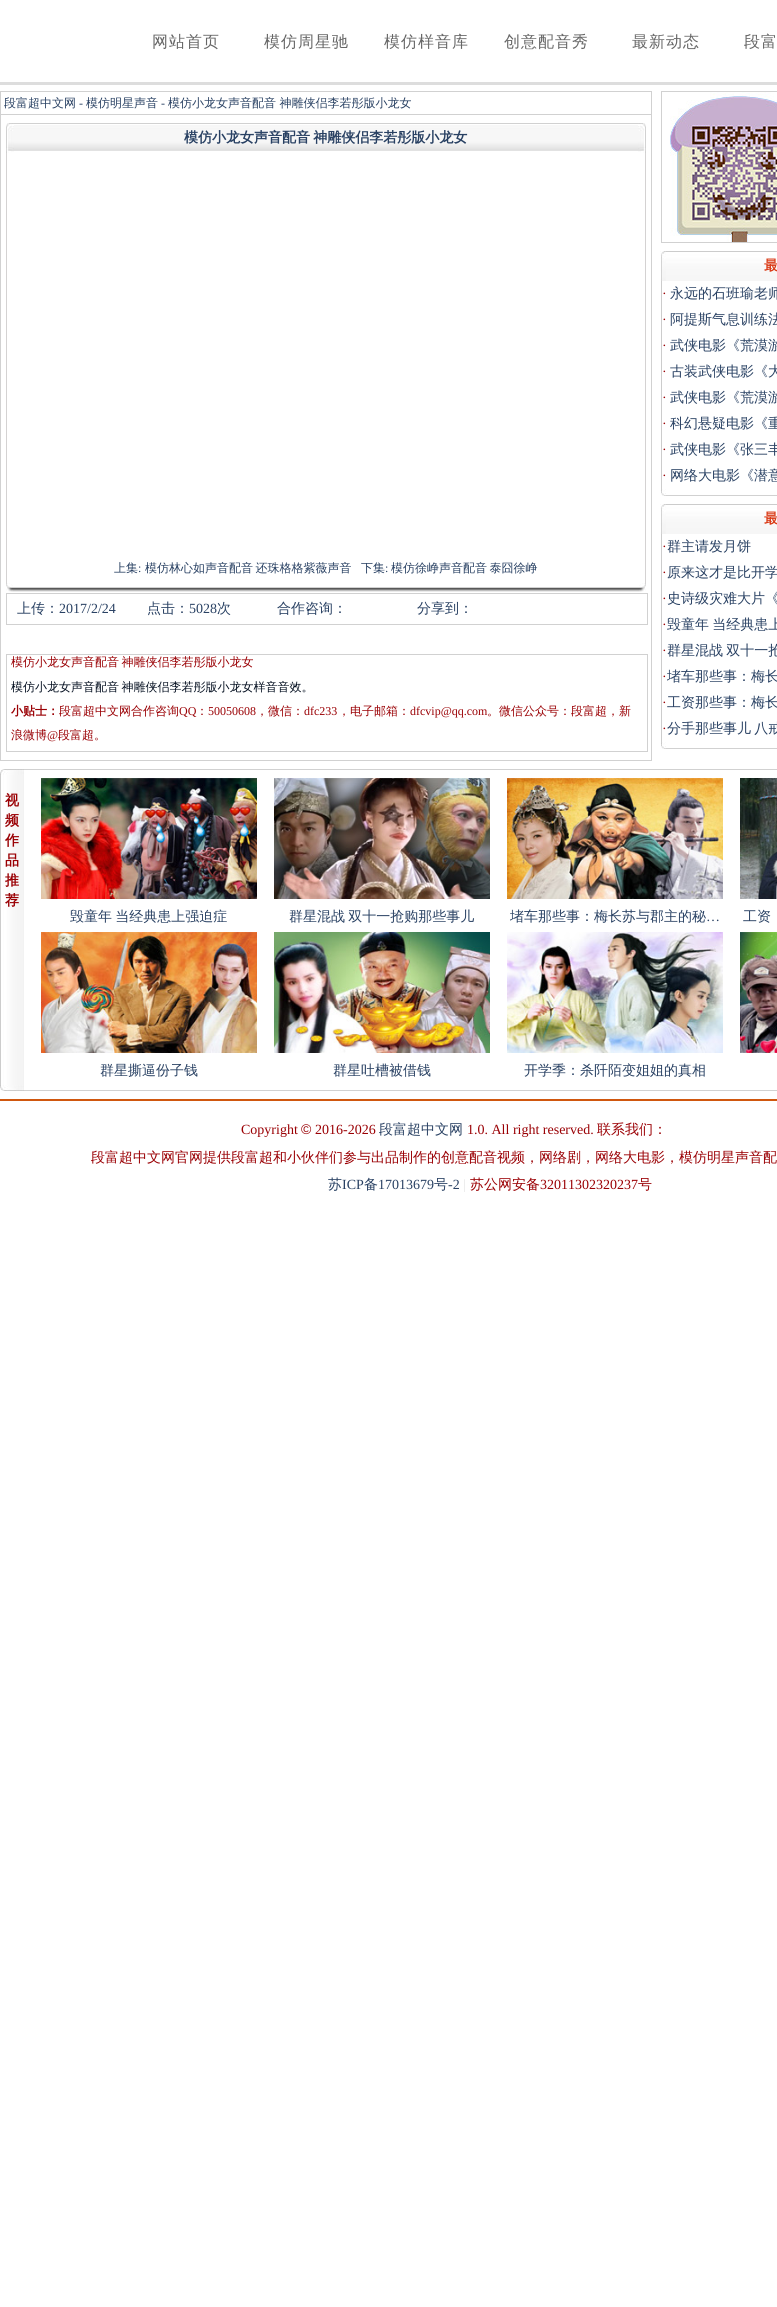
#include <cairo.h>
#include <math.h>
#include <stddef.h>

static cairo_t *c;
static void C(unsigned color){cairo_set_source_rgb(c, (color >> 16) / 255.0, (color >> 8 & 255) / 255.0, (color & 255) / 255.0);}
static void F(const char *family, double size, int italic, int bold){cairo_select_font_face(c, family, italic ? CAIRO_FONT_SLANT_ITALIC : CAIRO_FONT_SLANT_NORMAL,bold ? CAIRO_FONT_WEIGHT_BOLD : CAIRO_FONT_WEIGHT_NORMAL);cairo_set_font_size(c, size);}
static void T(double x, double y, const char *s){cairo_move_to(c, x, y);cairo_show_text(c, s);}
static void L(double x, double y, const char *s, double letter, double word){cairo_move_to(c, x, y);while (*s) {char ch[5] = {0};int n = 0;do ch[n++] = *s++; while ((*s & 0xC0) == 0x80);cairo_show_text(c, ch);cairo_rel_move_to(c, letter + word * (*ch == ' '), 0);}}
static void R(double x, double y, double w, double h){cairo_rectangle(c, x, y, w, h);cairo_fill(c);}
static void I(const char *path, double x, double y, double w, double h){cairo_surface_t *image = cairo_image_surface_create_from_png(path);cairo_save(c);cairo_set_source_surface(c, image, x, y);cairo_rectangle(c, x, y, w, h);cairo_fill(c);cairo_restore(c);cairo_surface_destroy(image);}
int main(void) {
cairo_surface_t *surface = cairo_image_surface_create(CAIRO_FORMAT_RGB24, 777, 2307);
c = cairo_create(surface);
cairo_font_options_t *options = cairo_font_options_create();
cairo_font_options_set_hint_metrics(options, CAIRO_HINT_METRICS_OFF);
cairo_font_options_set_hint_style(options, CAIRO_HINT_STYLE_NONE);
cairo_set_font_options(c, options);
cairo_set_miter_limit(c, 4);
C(0xffffff);
cairo_paint(c);
C(0xdddddd);
R(0,82,777,3);
F("WenQuanYi Zen Hei Medium",16,0,0);
C(0x666666);
L(152,47,"网站首页",1,0);
L(264,47,"模仿周星驰",1,0);
L(384,47,"模仿样音库",1,0);
L(504,47,"创意配音秀",1,0);
L(632,47,"最新动态",1,0);
L(744,47,"段富",1,0);
cairo_rectangle(c,.5,91.5,651,669);
C(0xd1d1d1);
cairo_set_line_width(c,1);
cairo_stroke(c);
R(1,114,650,1);
F("WenQuanYi Zen Hei Medium",12,0,0);
C(0x294163);
T(4,107,"段富超中文网");
F("Liberation Serif",12,0,0);
T(79,107,"-");
F("WenQuanYi Zen Hei Medium",12,0,0);
T(86,107,"模仿明星声音");
F("Liberation Serif",12,0,0);
T(161,107,"-");
F("WenQuanYi Zen Hei Medium",12,0,0);
T(168,107,"模仿小龙女声音配音 神雕侠侣李若彤版小龙女");
I("1.png",14,123,624,28);
I("2.png",6,123,8,30);
F("WenQuanYi Zen Hei",14,0,1);
L(184,142,"模仿小龙女声音配音 神雕侠侣李若彤版小龙女",0,-1);
I("3.png",638,123,8,30);
C(0xd4d2d2);
R(645,153,1,430);
R(6,153,1,430);
F("WenQuanYi Zen Hei Medium",12,0,0);
C(0x294163);
T(114,572,"上集");
F("Liberation Serif",12,0,0);
T(138,572,":");
F("WenQuanYi Zen Hei Medium",12,0,0);
L(145,572,"模仿林心如声音配音 还珠格格紫薇声音",0,-1);
T(361,572,"下集");
F("Liberation Serif",12,0,0);
T(385,572,":");
F("WenQuanYi Zen Hei Medium",12,0,0);
L(391,572,"模仿徐峥声音配音 泰囧徐峥",0,-1);
I("4.png",13,587,626,5);
I("5.png",6,583,7,9);
I("6.png",639,583,7,9);
cairo_rectangle(c,6.5,593.5,641,31);
C(0xd1d1d1);
cairo_stroke(c);
F("WenQuanYi Zen Hei Medium",14,0,0);
C(0x294163);
T(17,613,"上传：");
F("Liberation Serif",14,0,0);
T(59,613,"2017/2/24");
F("WenQuanYi Zen Hei Medium",14,0,0);
T(147,613,"点击：");
F("Liberation Serif",14,0,0);
T(189,613,"5028");
F("WenQuanYi Zen Hei Medium",14,0,0);
T(217,613,"次");
T(277,613,"合作咨询：");
T(417,613,"分享到：");
cairo_rectangle(c,6.5,654.5,641,97);
C(0xd1d1d1);
cairo_stroke(c);
F("WenQuanYi Zen Hei Medium",12,0,0);
C(0x9a0004);
L(11,666,"模仿小龙女声音配音 神雕侠侣李若彤版小龙女",0,-1);
C(0x051021);
L(11,691,"模仿小龙女声音配音 神雕侠侣李若彤版小龙女样音音效。",0,-1);
F("WenQuanYi Zen Hei",12,0,1);
C(0x9a0004);
T(11,715,"小贴士：");
F("WenQuanYi Zen Hei Medium",12,0,0);
T(59,715,"段富超中文网合作咨询");
F("Liberation Serif",12,0,0);
T(179,715,"QQ");
F("WenQuanYi Zen Hei Medium",12,0,0);
T(196,715,"：");
F("Liberation Serif",12,0,0);
T(208,715,"50050608");
F("WenQuanYi Zen Hei Medium",12,0,0);
T(256,715,"，微信：");
F("Liberation Serif",12,0,0);
T(304,715,"dfc233");
F("WenQuanYi Zen Hei Medium",12,0,0);
T(338,715,"，电子邮箱：");
F("Liberation Serif",12,0,0);
T(410,715,"dfcvip@qq.com");
F("WenQuanYi Zen Hei Medium",12,0,0);
T(487,715,"。微信公众号：段富超，新");
T(11,739,"浪微博");
F("Liberation Serif",12,0,0);
T(47,739,"@");
F("WenQuanYi Zen Hei Medium",12,0,0);
T(58,739,"段富超。");
cairo_rectangle(c,661.5,91.5,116,151);
C(0xd1d1d1);
cairo_stroke(c);
I("7.png",670,92,107,150);
I("8.png",666,251,111,30);
I("9.png",660,251,6,30);
F("WenQuanYi Zen Hei",14,0,1);
C(0xda3915);
T(764,270,"最");
C(0xcccccc);
R(661,281,1,208);
F("Liberation Serif",14,0,0);
C(0x9a0004);
T(662,298,"·");
F("WenQuanYi Zen Hei Medium",14,0,0);
C(0x294163);
T(670,298,"永远的石班瑜老师");
F("Liberation Serif",14,0,0);
C(0x9a0004);
T(662,324,"·");
F("WenQuanYi Zen Hei Medium",14,0,0);
C(0x294163);
T(670,324,"阿提斯气息训练法");
F("Liberation Serif",14,0,0);
C(0x9a0004);
T(662,350,"·");
F("WenQuanYi Zen Hei Medium",14,0,0);
C(0x294163);
T(670,350,"武侠电影《荒漠游");
F("Liberation Serif",14,0,0);
C(0x9a0004);
T(662,376,"·");
F("WenQuanYi Zen Hei Medium",14,0,0);
C(0x294163);
T(670,376,"古装武侠电影《大");
F("Liberation Serif",14,0,0);
C(0x9a0004);
T(662,402,"·");
F("WenQuanYi Zen Hei Medium",14,0,0);
C(0x294163);
T(670,402,"武侠电影《荒漠游");
F("Liberation Serif",14,0,0);
C(0x9a0004);
T(662,428,"·");
F("WenQuanYi Zen Hei Medium",14,0,0);
C(0x294163);
T(670,428,"科幻悬疑电影《重");
F("Liberation Serif",14,0,0);
C(0x9a0004);
T(662,454,"·");
F("WenQuanYi Zen Hei Medium",14,0,0);
C(0x294163);
T(670,454,"武侠电影《张三丰");
F("Liberation Serif",14,0,0);
C(0x9a0004);
T(662,480,"·");
F("WenQuanYi Zen Hei Medium",14,0,0);
C(0x294163);
T(670,480,"网络大电影《潜意");
C(0xd1d1d1);
R(660,495,117,1);
I("10.png",660,489,6,7);
I("8.png",666,504,111,30);
I("9.png",660,504,6,30);
F("WenQuanYi Zen Hei",14,0,1);
C(0xda3915);
T(764,523,"最");
C(0xcccccc);
R(661,534,1,208);
F("Liberation Serif",14,0,0);
C(0x9a0004);
T(662,551,"·");
F("WenQuanYi Zen Hei Medium",14,0,0);
C(0x294163);
T(667,551,"群主请发月饼");
F("Liberation Serif",14,0,0);
C(0x9a0004);
T(662,577,"·");
F("WenQuanYi Zen Hei Medium",14,0,0);
C(0x294163);
T(667,577,"原来这才是比开学");
F("Liberation Serif",14,0,0);
C(0x9a0004);
T(662,603,"·");
F("WenQuanYi Zen Hei Medium",14,0,0);
C(0x294163);
T(667,603,"史诗级灾难大片《");
F("Liberation Serif",14,0,0);
C(0x9a0004);
T(662,629,"·");
F("WenQuanYi Zen Hei Medium",14,0,0);
C(0x294163);
L(667,629,"毁童年 当经典患上",0,-1);
F("Liberation Serif",14,0,0);
C(0x9a0004);
T(662,655,"·");
F("WenQuanYi Zen Hei Medium",14,0,0);
C(0x294163);
L(667,655,"群星混战 双十一抢",0,-1);
F("Liberation Serif",14,0,0);
C(0x9a0004);
T(662,681,"·");
F("WenQuanYi Zen Hei Medium",14,0,0);
C(0x294163);
T(667,681,"堵车那些事：梅长");
F("Liberation Serif",14,0,0);
C(0x9a0004);
T(662,707,"·");
F("WenQuanYi Zen Hei Medium",14,0,0);
C(0x294163);
T(667,707,"工资那些事：梅长");
F("Liberation Serif",14,0,0);
C(0x9a0004);
T(662,733,"·");
F("WenQuanYi Zen Hei Medium",14,0,0);
C(0x294163);
L(667,733,"分手那些事儿 八戒",0,-1);
C(0xd1d1d1);
R(660,748,117,1);
I("10.png",660,742,6,7);
I("11.png",0,769,24,6);
I("12.png",0,775,24,310);
F("WenQuanYi Zen Hei",14,0,1);
C(0x9a0004);
T(5,805,"视");
T(5,825,"频");
T(5,845,"作");
T(5,865,"品");
T(5,885,"推");
T(5,905,"荐");
I("13.png",0,1085,24,6);
C(0xd1d1d1);
R(24,769,753,1);
R(24,1090,753,1);
I("14.png",41,778,216,121);
F("WenQuanYi Zen Hei Medium",14,0,0);
C(0x294163);
L(70,921,"毁童年 当经典患上强迫症",0,-1);
I("15.png",274,778,216,121);
L(289,921,"群星混战 双十一抢购那些事儿",0,-1);
I("16.png",507,778,216,121);
T(510,921,"堵车那些事：梅长苏与郡主的秘");
F("Liberation Serif",14,0,0);
T(706,921,"…");
I("17.png",740,778,37,121);
F("WenQuanYi Zen Hei Medium",14,0,0);
T(743,921,"工资");
I("18.png",740,932,37,121);
I("19.png",41,932,216,121);
T(100,1075,"群星撕逼份子钱");
I("20.png",274,932,216,121);
T(333,1075,"群星吐槽被借钱");
I("21.png",507,932,216,121);
T(524,1075,"开学季：杀阡陌变姐姐的真相");
C(0xd0570e);
R(0,1099,777,2);
F("Liberation Serif",14,0,0);
C(0x9a0004);
T(241,1134,"Copyright");
F("Liberation Sans",14,0,0);
T(301,1134,"©");
F("Liberation Serif",14,0,0);
T(315,1134,"2016-2026");
F("WenQuanYi Zen Hei Medium",14,0,0);
C(0x294163);
T(379,1134,"段富超中文网");
F("Liberation Serif",14,0,0);
C(0x9a0004);
T(467,1134,"1.0. All right reserved.");
F("WenQuanYi Zen Hei Medium",14,0,0);
T(597,1134,"联系我们：");
T(91,1162,"段富超中文网官网提供段富超和小伙伴们参与出品制作的创意配音视频，网络剧，网络大电影，模仿明星声音配");
C(0x294163);
T(328,1189,"苏");
F("Liberation Serif",14,0,0);
T(342,1189,"ICP");
F("WenQuanYi Zen Hei Medium",14,0,0);
T(364,1189,"备");
F("Liberation Serif",14,0,0);
T(378,1189,"17013679");
F("WenQuanYi Zen Hei Medium",14,0,0);
T(434,1189,"号");
F("Liberation Serif",14,0,0);
T(448,1189,"-2");
C(0xe5e5e5);
T(463,1189,"|");
F("WenQuanYi Zen Hei Medium",14,0,0);
C(0x9a0004);
T(470,1189,"苏公网安备");
F("Liberation Serif",14,0,0);
T(540,1189,"32011302320237");
F("WenQuanYi Zen Hei Medium",14,0,0);
T(638,1189,"号");
cairo_surface_write_to_png(surface, "o.png");
cairo_font_options_destroy(options);
cairo_destroy(c);
cairo_surface_destroy(surface);
return 0;
}
